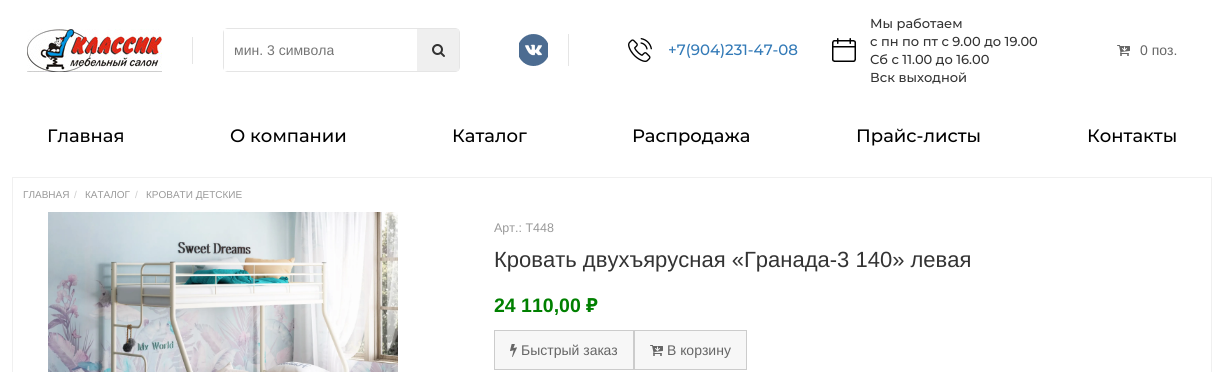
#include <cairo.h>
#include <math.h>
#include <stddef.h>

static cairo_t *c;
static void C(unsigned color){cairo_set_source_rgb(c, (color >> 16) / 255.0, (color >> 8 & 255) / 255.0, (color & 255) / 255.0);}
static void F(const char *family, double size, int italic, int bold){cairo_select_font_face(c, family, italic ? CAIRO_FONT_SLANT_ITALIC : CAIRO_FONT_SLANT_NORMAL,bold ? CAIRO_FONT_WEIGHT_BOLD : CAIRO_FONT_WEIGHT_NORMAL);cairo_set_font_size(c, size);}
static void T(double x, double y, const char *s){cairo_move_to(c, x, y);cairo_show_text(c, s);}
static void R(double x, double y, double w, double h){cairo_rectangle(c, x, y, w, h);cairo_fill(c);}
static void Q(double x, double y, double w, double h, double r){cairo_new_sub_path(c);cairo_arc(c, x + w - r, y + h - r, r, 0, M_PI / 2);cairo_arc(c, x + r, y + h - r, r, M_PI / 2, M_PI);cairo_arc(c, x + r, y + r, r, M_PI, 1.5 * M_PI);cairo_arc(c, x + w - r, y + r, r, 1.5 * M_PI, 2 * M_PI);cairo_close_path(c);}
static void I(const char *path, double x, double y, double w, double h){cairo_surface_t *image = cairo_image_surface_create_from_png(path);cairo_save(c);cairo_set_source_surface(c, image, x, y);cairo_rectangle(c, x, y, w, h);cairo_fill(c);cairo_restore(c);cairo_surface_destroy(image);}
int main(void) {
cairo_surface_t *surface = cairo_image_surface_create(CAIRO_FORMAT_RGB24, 1224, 372);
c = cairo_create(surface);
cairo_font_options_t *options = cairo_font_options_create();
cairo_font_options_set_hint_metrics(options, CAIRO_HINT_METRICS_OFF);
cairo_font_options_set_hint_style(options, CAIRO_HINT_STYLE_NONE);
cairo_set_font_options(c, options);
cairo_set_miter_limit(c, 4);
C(0xffffff);
cairo_paint(c);
I("1.png",27,29,135,43);
C(0xe5e5e5);
R(192,37,1,27);
Q(223.5,28.5,236,43,4.5);
cairo_set_line_width(c,1);
cairo_stroke(c);
C(0xffffff);
R(224,29,3,42);
F("Liberation Sans",14,0,0);
C(0x757575);
T(234,55,"мин. 3 символа");
C(0xefefef);
R(417,29,42,42);
I("2.png",432,44,13,13);
C(0xe5e5e5);
R(568,34,1,32);
I("3.png",519,34,29,32);
I("4.png",628,38,24,24);
F("Montserrat Medium",15,0,0);
C(0x337ab7);
T(668,55,"+7(904)231-47-08");
I("5.png",832,38,24,24);
F("Montserrat Medium",13,0,0);
C(0x333333);
T(870,28,"Мы работаем");
T(870,46,"с пн по пт с 9.00 до 19.00");
T(870,64,"Сб с 11.00 до 16.00");
T(870,82,"Вск выходной");
I("6.png",1117,45,13,11);
F("Liberation Sans",14,0,0);
C(0x666666);
T(1140,55,"0 поз.");
F("Montserrat Medium",18,0,0);
C(0x000000);
T(47,142,"Главная");
T(230,142,"О компании");
T(452,142,"Каталог");
T(632,142,"Распродажа");
T(856,142,"Прайс-листы");
T(1087,142,"Контакты");
cairo_rectangle(c,12.5,177.5,1199,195);
C(0xf0f0f0);
cairo_stroke(c);
F("Liberation Sans",10,0,0);
C(0x999999);
T(23,198,"ГЛАВНАЯ");
C(0xcccccc);
T(74,198,"/");
C(0x999999);
T(85,198,"КАТАЛОГ");
C(0xcccccc);
T(135,198,"/");
C(0x999999);
T(146,198,"КРОВАТИ ДЕТСКИЕ");
I("7.png",48,212,350,160);
F("Liberation Sans",12.5,0,0);
T(494,232,"Арт.: Т448");
F("Liberation Sans",22,0,0);
C(0x333333);
T(494,267,"Кровать двухъярусная «Гранада-3 140» левая");
F("Liberation Sans",19.5,0,1);
C(0x008000);
T(494,312,"24 110,00");
F("Noto Sans",19.5,0,1);
T(586,312,"₽");
C(0xf7f7f7);
cairo_rectangle(c,494.5,330.5,139,39);
cairo_fill_preserve(c);
C(0xcccccc);
cairo_stroke(c);
I("8.png",510,344,7,13);
F("Liberation Sans",14,0,0);
C(0x666666);
T(521,355,"Быстрый заказ");
C(0xf7f7f7);
cairo_rectangle(c,634.5,330.5,112,39);
cairo_fill_preserve(c);
C(0xcccccc);
cairo_stroke(c);
I("9.png",650,345,13,11);
C(0x666666);
T(667,355,"В корзину");
cairo_surface_write_to_png(surface, "o.png");
cairo_font_options_destroy(options);
cairo_destroy(c);
cairo_surface_destroy(surface);
return 0;
}
